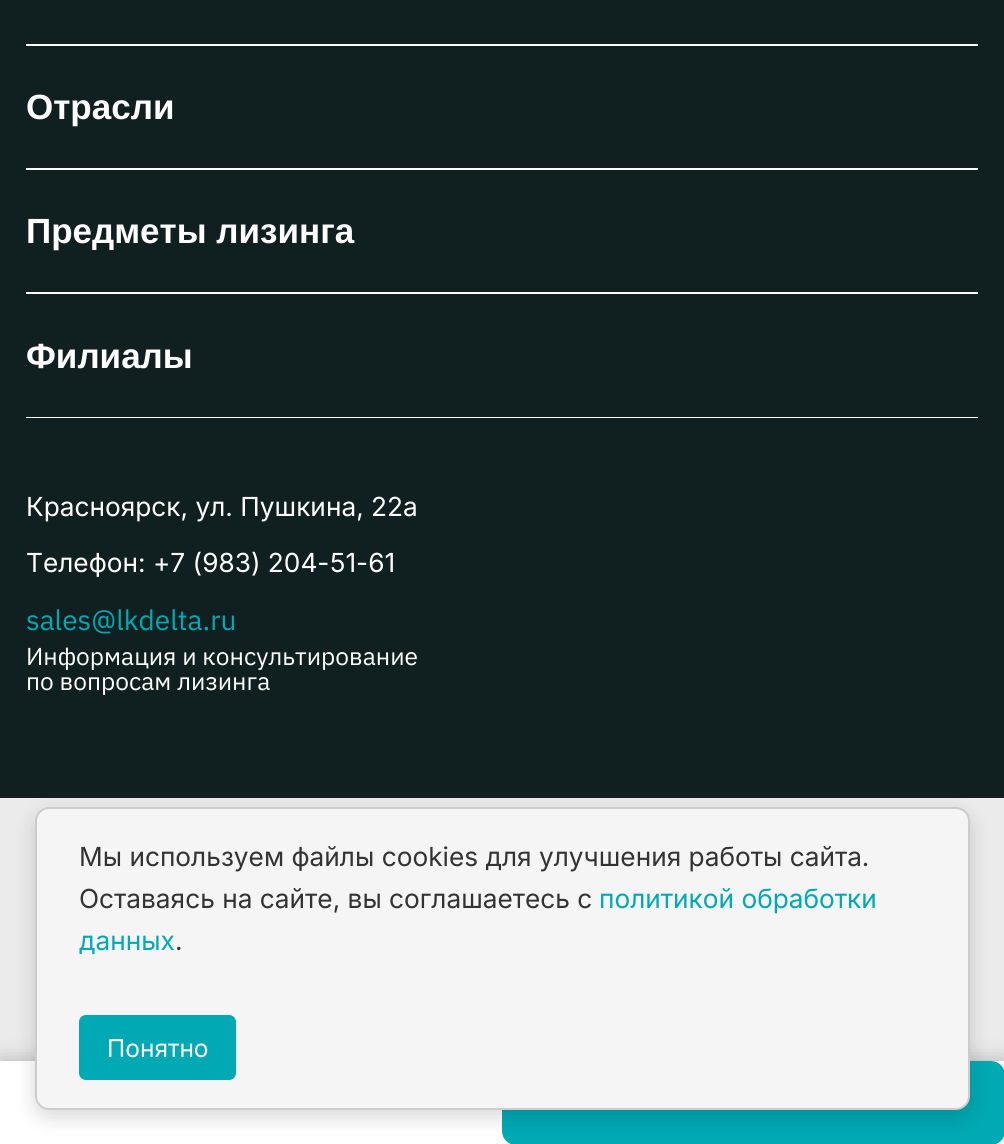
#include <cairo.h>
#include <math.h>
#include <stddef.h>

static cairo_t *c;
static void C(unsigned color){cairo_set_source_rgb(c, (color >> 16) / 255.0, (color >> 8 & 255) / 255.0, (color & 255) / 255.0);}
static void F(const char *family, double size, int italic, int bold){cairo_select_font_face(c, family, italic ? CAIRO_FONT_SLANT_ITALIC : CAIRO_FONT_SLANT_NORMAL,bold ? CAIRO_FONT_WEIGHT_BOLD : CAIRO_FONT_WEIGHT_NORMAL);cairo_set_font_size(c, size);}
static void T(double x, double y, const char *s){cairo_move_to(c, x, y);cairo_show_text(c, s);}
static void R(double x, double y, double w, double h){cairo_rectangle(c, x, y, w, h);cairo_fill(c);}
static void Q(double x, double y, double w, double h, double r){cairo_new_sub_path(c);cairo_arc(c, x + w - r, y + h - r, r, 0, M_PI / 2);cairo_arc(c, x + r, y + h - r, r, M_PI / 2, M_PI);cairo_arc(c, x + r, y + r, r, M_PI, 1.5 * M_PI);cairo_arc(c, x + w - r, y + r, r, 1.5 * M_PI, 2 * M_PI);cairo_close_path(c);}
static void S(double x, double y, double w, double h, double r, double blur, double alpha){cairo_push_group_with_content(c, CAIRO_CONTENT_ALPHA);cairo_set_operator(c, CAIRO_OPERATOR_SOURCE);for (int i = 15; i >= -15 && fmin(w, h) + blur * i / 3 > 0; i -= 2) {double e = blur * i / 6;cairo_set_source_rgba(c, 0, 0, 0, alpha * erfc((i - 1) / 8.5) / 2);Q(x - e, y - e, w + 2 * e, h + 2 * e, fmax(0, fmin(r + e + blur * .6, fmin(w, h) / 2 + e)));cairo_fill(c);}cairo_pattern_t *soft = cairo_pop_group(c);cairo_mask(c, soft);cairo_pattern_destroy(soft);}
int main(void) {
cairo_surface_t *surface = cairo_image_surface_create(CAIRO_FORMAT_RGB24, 1004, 1144);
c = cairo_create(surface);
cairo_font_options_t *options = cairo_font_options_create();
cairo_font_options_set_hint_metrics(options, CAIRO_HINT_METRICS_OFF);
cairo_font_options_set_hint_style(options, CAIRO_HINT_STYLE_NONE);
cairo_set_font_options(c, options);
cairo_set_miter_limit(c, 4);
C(0x102021);
cairo_paint(c);
C(0xffffff);
R(26,44,952,2);
R(26,168,952,2);
F("Liberation Sans",35,0,1);
T(26,119,"Отрасли");
R(26,292,952,2);
T(26,243,"Предметы лизинга");
R(26,417,952,1);
T(26,368,"Филиалы");
F("Inter",26.25,0,0);
T(26,516,"Красноярск, ул. Пушкина, 22а");
T(26,572,"Телефон: +7 (983) 204-51-61");
F("IBM Plex Sans",28,0,0);
C(0x00a9b3);
T(26,630,"sales@lkdelta.ru");
F("IBM Plex Sans",24.5,0,0);
C(0xffffff);
T(26,665,"Информация и консультирование");
T(26,690,"по вопросам лизинга");
C(0xebebeb);
R(0,798,1004,263);
C(0x000000);
S(0,1061,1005,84,0,10.5,.25);
C(0xffffff);
R(0,1061,1004,83);
C(0x00a9b3);
Q(502,1061,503,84,14);
cairo_fill(c);
C(0x000000);
S(35,814,935,303,14,10.5,.15);
C(0xf5f5f5);
Q(36,808,933,301,13);
cairo_fill_preserve(c);
C(0xcccccc);
cairo_stroke(c);
F("Inter",26.25,0,0);
C(0x333333);
T(79,866,"Мы используем файлы cookies для улучшения работы сайта.");
T(79,908,"Оставаясь на сайте, вы соглашаетесь с");
C(0x00a9b3);
T(599,908,"политикой обработки");
T(79,950,"данных");
C(0x333333);
T(175,950,".");
C(0x00a9b3);
Q(79,1015,157,65,7);
cairo_fill(c);
F("Inter",24.5,0,0);
C(0xffffff);
T(107,1057,"Понятно");
cairo_surface_write_to_png(surface, "o.png");
cairo_font_options_destroy(options);
cairo_destroy(c);
cairo_surface_destroy(surface);
return 0;
}
